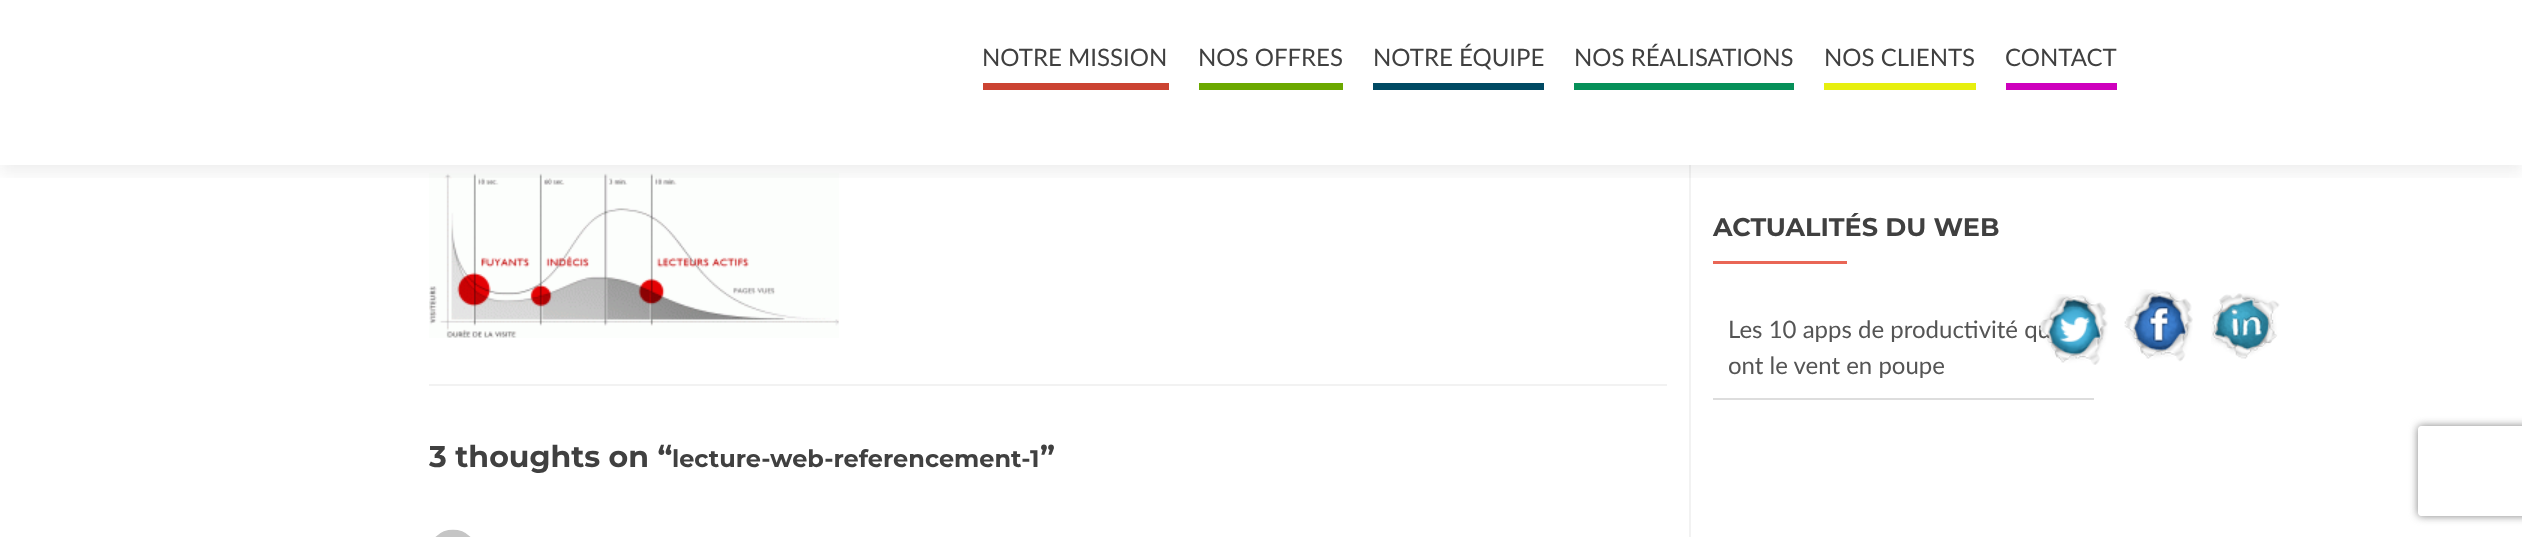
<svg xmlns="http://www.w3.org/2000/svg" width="2522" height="537">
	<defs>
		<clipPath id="clip1"><rect x="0" y="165" width="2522" height="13" /></clipPath>
		<clipPath id="clip2"><path d="M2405 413H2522V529H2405ZM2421 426H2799C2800.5 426 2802 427.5 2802 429V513C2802 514.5 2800.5 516 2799 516H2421C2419.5 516 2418 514.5 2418 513V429C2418 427.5 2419.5 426 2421 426Z" clip-rule="evenodd" /></clipPath>
	</defs>
	<rect width="100%" height="100%" fill="#FFFFFF" />
	<rect x="1689" y="165" width="2" height="372" fill="#F2F2F2" />
	<image x="429" y="173" width="410" height="165" href="assets/img1.png" />
	<g clip-path="url(#clip1)">
		<rect x="0" y="8" width="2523" height="165" fill="#323232" fill-opacity="0.08" filter="blur(8px)" />
	</g>
	<rect x="983" y="83" width="186" height="7" fill="#CB4332" />
	<text x="982" y="66" font-family="Lato" font-size="24" fill="#404040">NOTRE MISSION</text>
	<rect x="1199" y="83" width="144" height="7" fill="#6BA800" />
	<text x="1198" y="66" font-family="Lato" font-size="24" fill="#404040">NOS OFFRES</text>
	<rect x="1373" y="83" width="171" height="7" fill="#004A63" />
	<text x="1373" y="66" font-family="Lato" font-size="24" fill="#404040">NOTRE ÉQUIPE</text>
	<rect x="1574" y="83" width="220" height="7" fill="#069059" />
	<text x="1574" y="66" font-family="Lato" font-size="24" fill="#404040">NOS RÉALISATIONS</text>
	<rect x="1824" y="83" width="152" height="7" fill="#E7EF0E" />
	<text x="1824" y="66" font-family="Lato" font-size="24" fill="#404040">NOS CLIENTS</text>
	<rect x="2006" y="83" width="111" height="7" fill="#CE00BD" />
	<text x="2005" y="66" font-family="Lato" font-size="24" fill="#404040">CONTACT</text>
	<text x="1713" y="236" font-family="Montserrat" font-size="25.5" font-weight="700" fill="#404040">ACTUALITÉS DU WEB</text>
	<rect x="1713" y="261" width="134" height="3" fill="#E96656" />
	<rect x="1713" y="398" width="381" height="2" fill="#DDDDDD" />
	<g font-family="Lato" font-size="24" fill="#555555">
		<text x="1728" y="338">Les 10 apps de productivité qu</text>
		<text x="1728" y="374">ont le vent en poupe</text>
	</g>
	<rect x="429" y="384" width="1238" height="2" fill="#F2F2F2" />
	<text x="429" y="467" font-family="Montserrat" font-size="30" font-weight="700" fill="#404040">3 thoughts on “</text>
	<text x="672" y="467" font-family="Montserrat" font-size="24" font-weight="700" fill="#404040">lecture-web-referencement-1</text>
	<text x="1040" y="467" font-family="Montserrat" font-size="30" font-weight="700" fill="#404040">”</text>
	<image x="435" y="529" width="36" height="8" href="assets/img2.png" />
	<image x="2039" y="294" width="69" height="71" href="assets/img3.png" />
	<image x="2124" y="289" width="69" height="73" href="assets/img4.png" />
	<image x="2211" y="293" width="69" height="66" href="assets/img5.png" />
	<g clip-path="url(#clip2)">
		<rect x="2418" y="426" width="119" height="90" rx="3" fill="#808080" filter="blur(4px)" />
	</g>
</svg>
